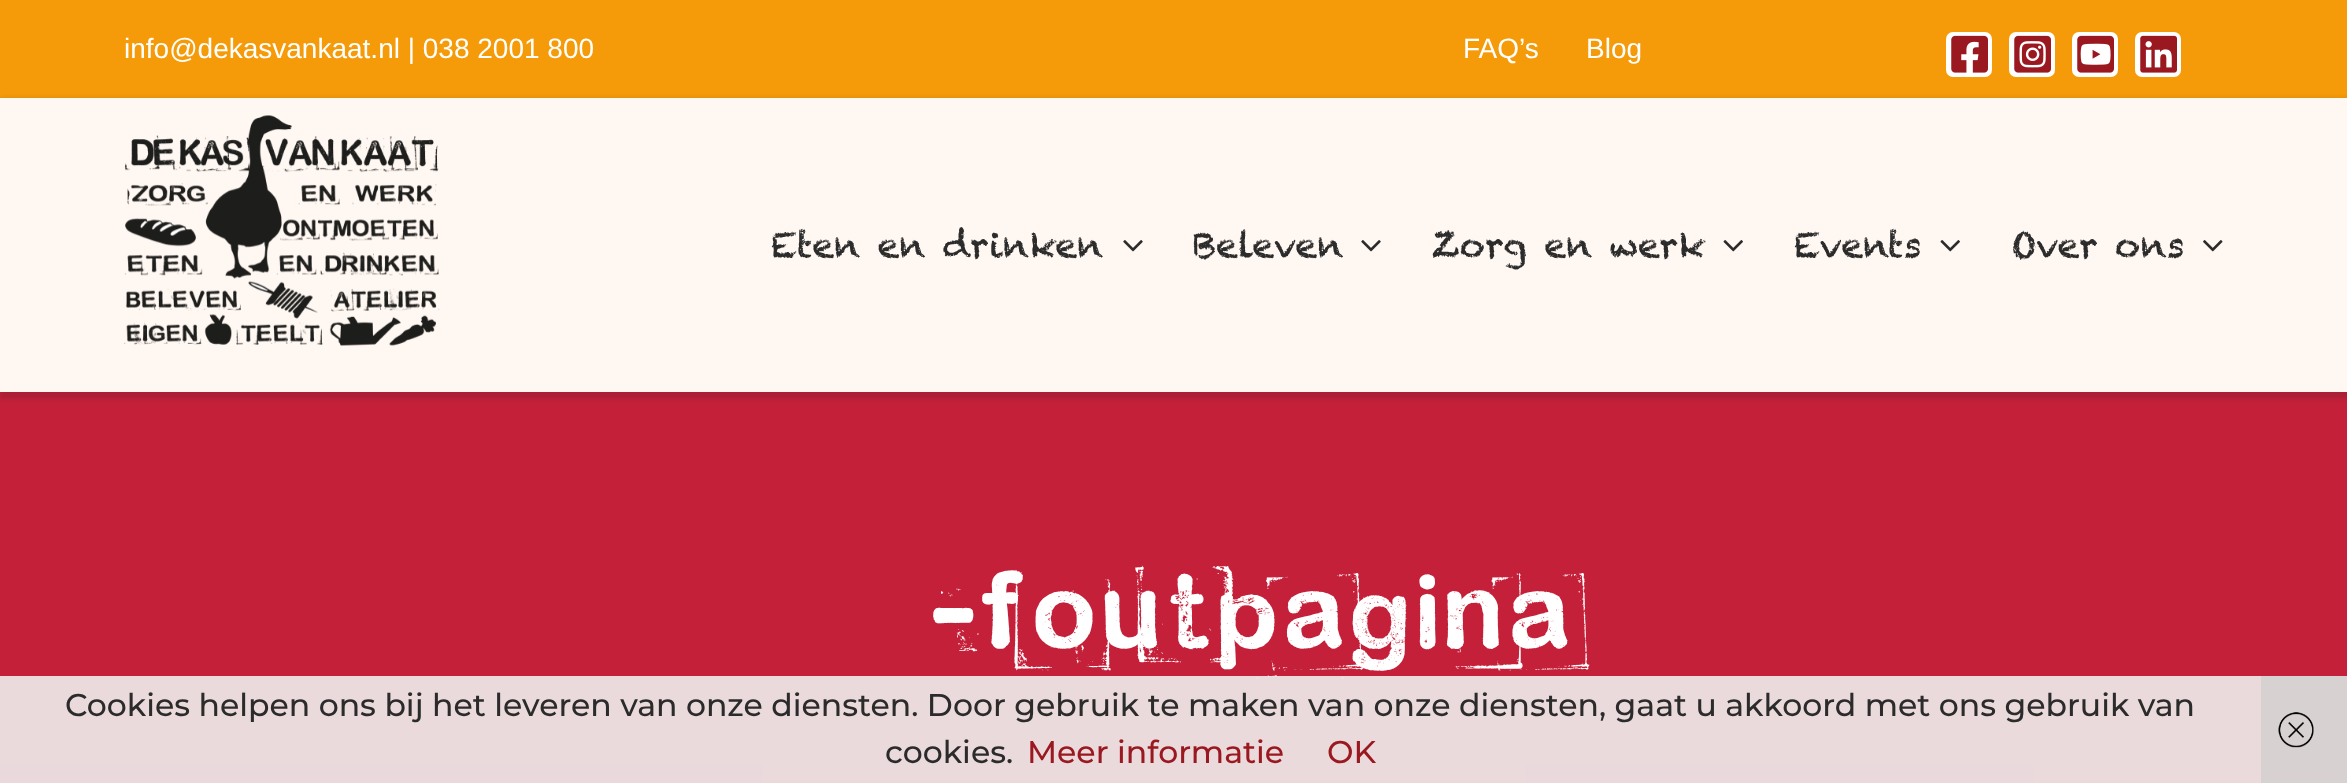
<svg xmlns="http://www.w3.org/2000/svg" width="2347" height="783">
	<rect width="100%" height="100%" fill="#C5203A" />
	<rect x="0" y="0" width="2347" height="98" fill="#F59B0A" />
	<g font-family="Liberation Sans" font-size="28" fill="#FFFFFF">
		<text x="124" y="58">info@dekasvankaat.nl | 038 2001 800</text>
		<text x="1463" y="58">FAQ’s</text>
		<text x="1586" y="58">Blog</text>
	</g>
	<rect x="1947" y="33" width="44" height="43" rx="6" fill="#FFFFFF" stroke="#FFFFFF" stroke-width="2" />
	<image x="1951" y="35" width="37" height="38" href="assets/img1.png" />
	<rect x="2010" y="33" width="44" height="43" rx="6" fill="#FFFFFF" stroke="#FFFFFF" stroke-width="2" />
	<image x="2014" y="35" width="37" height="38" href="assets/img2.png" />
	<rect x="2073" y="33" width="44" height="43" rx="6" fill="#FFFFFF" stroke="#FFFFFF" stroke-width="2" />
	<image x="2077" y="35" width="37" height="38" href="assets/img3.png" />
	<rect x="2136" y="33" width="44" height="43" rx="6" fill="#FFFFFF" stroke="#FFFFFF" stroke-width="2" />
	<image x="2140" y="35" width="37" height="38" href="assets/img4.png" />
	<rect x="0" y="98" width="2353" height="301" fill="#1D1D1B" fill-opacity="0.15" filter="blur(2px)" />
	<rect x="0" y="98" width="2347" height="294" fill="#FFF7F2" />
	<image x="124" y="115" width="316" height="231" href="assets/img5.png" />
	<text x="771" y="257" font-family="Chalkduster" font-size="35" fill="#2B2B2B">Eten en drinken</text>
	<image x="1123" y="240" width="20" height="12" href="assets/img6.png" />
	<text x="1193" y="257" font-family="Chalkduster" font-size="35" fill="#2B2B2B">Beleven</text>
	<image x="1361" y="240" width="20" height="12" href="assets/img6.png" />
	<text x="1432" y="257" font-family="Chalkduster" font-size="35" fill="#2B2B2B">Zorg en werk</text>
	<image x="1723" y="240" width="20" height="12" href="assets/img7.png" />
	<text x="1794" y="257" font-family="Chalkduster" font-size="35" fill="#2B2B2B">Events</text>
	<image x="1940" y="240" width="20" height="12" href="assets/img7.png" />
	<text x="2011" y="257" font-family="Chalkduster" font-size="35" fill="#2B2B2B">Over ons</text>
	<image x="2203" y="240" width="20" height="12" href="assets/img8.png" />
	<text x="775" y="649" font-family="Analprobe" font-size="105" fill="#FFFFFF">404-foutpagina</text>
	<rect x="0" y="676" width="2261" height="107" fill="#EEEEEE" fill-opacity="0.9" />
	<g font-family="Montserrat" font-size="31.5" font-weight="500" fill="#2B2B2B">
		<text x="65" y="716">Cookies helpen ons bij het leveren van onze diensten. Door gebruik te maken van onze diensten, gaat u akkoord met ons gebruik van</text>
		<text x="885" y="763">cookies.</text>
	</g>
	<g font-family="Montserrat" font-size="31.5" font-weight="500" fill="#9A1921">
		<text x="1027" y="763">Meer informatie</text>
		<text x="1327" y="763">OK</text>
	</g>
	<rect x="2261" y="676" width="86" height="107" fill="#D8D1D2" />
	<image x="2278" y="712" width="36" height="36" href="assets/img9.png" />
</svg>
